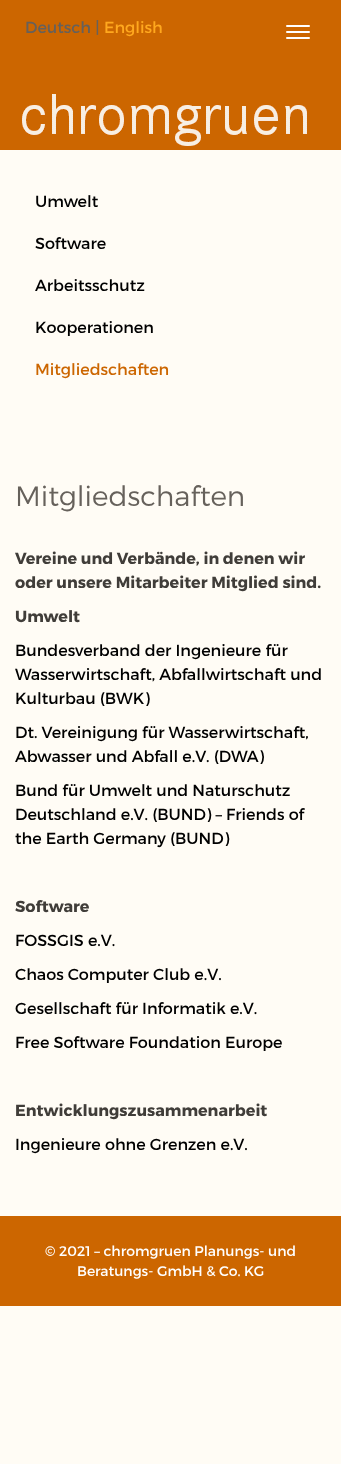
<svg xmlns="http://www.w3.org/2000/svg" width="341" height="1464">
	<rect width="100%" height="100%" fill="#FFFCF5" />
	<rect x="0" y="0" width="341" height="150" fill="#CC6600" />
	<text x="25" y="33" font-family="Montserrat" font-size="16" fill="#66615B">Deutsch |</text>
	<text x="104" y="33" font-family="Montserrat" font-size="16" fill="#FFA81E">English</text>
	<rect x="286" y="25" width="24" height="2" rx="1" fill="#FFFFFF" />
	<rect x="286" y="31" width="24" height="2" rx="1" fill="#FFFFFF" />
	<rect x="286" y="37" width="24" height="2" rx="1" fill="#FFFFFF" />
	<image x="22" y="94" width="285" height="52" href="assets/img1.png" />
	<g font-family="Montserrat" font-size="16" fill="#000000">
		<text x="35" y="207">Umwelt</text>
		<text x="35" y="249">Software</text>
		<text x="35" y="291">Arbeitsschutz</text>
		<text x="35" y="333">Kooperationen</text>
	</g>
	<text x="35" y="375" font-family="Montserrat" font-size="16" fill="#CC6600">Mitgliedschaften</text>
	<text x="15" y="506" font-family="Montserrat" font-size="28" font-weight="300" fill="#66615B">Mitgliedschaften</text>
	<g font-family="Montserrat" font-size="16" font-weight="700" fill="#403D39">
		<text x="15" y="564">Vereine und Verbände, in denen wir</text>
		<text x="15" y="588">oder unsere Mitarbeiter Mitglied sind.</text>
		<text x="15" y="622">Umwelt</text>
	</g>
	<g font-family="Montserrat" font-size="16" fill="#000000">
		<text x="15" y="656">Bundesverband der Ingenieure für</text>
		<text x="15" y="680">Wasserwirtschaft, Abfallwirtschaft und</text>
		<text x="15" y="704">Kulturbau (BWK)</text>
		<text x="15" y="738">Dt. Vereinigung für Wasserwirtschaft,</text>
		<text x="15" y="762">Abwasser und Abfall e.V. (DWA)</text>
		<text x="15" y="796">Bund für Umwelt und Naturschutz</text>
		<text x="15" y="820">Deutschland e.V. (BUND) – Friends of</text>
		<text x="15" y="844">the Earth Germany (BUND)</text>
	</g>
	<text x="15" y="912" font-family="Montserrat" font-size="16" font-weight="700" fill="#403D39">Software</text>
	<g font-family="Montserrat" font-size="16" fill="#000000">
		<text x="15" y="946">FOSSGIS e.V.</text>
		<text x="15" y="980">Chaos Computer Club e.V.</text>
		<text x="15" y="1014">Gesellschaft für Informatik e.V.</text>
		<text x="15" y="1048">Free Software Foundation Europe</text>
	</g>
	<text x="15" y="1116" font-family="Montserrat" font-size="16" font-weight="700" fill="#403D39">Entwicklungszusammenarbeit</text>
	<text x="15" y="1150" font-family="Montserrat" font-size="16" fill="#000000">Ingenieure ohne Grenzen e.V.</text>
	<rect x="0" y="1216" width="341" height="90" fill="#CC6600" />
	<g font-family="Montserrat" font-size="14" fill="#FFFFFF">
		<text x="45" y="1256">© 2021 – chromgruen Planungs- und</text>
		<text x="77" y="1276">Beratungs- GmbH &amp; Co. KG</text>
	</g>
</svg>
